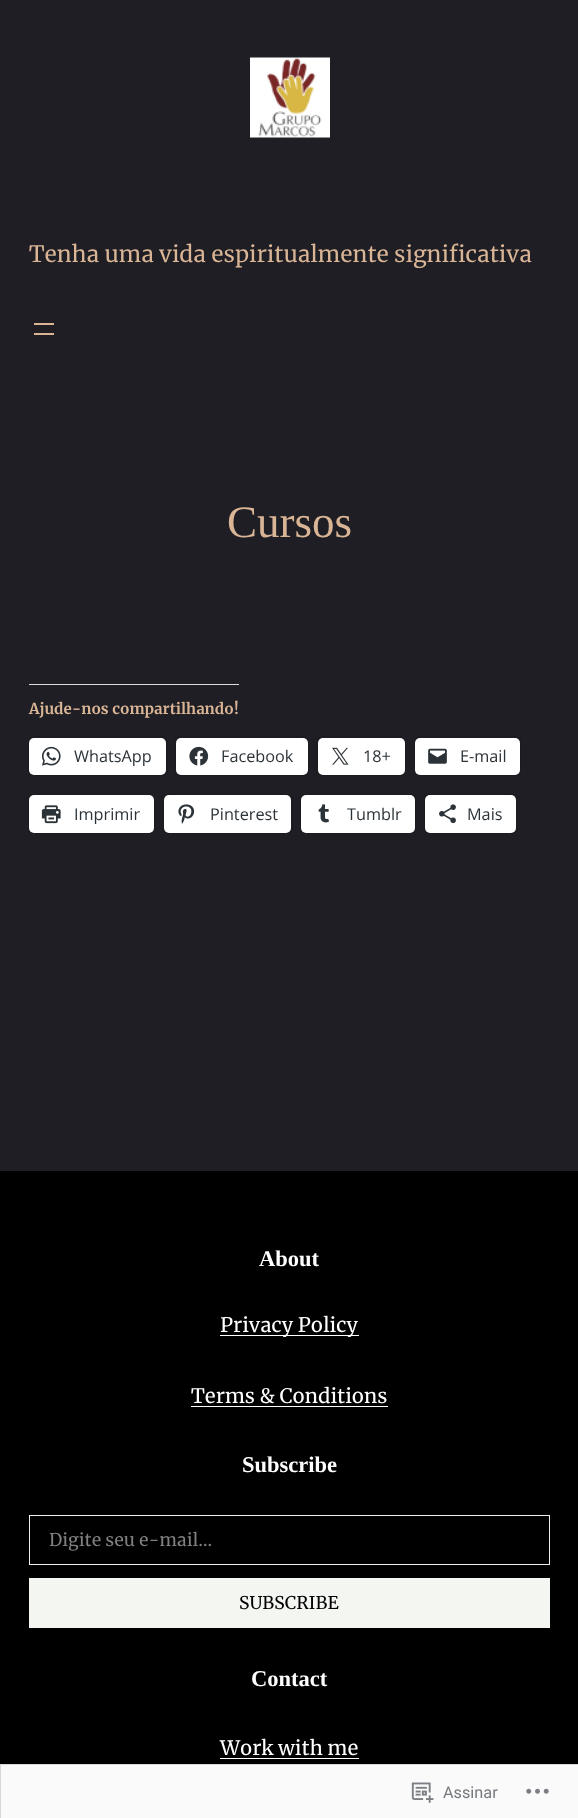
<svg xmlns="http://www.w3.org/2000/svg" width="578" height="1818">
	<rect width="100%" height="100%" fill="#1E1E24" />
	<image x="250" y="57" width="80" height="81" href="assets/img1.png" />
	<text x="29" y="262" font-family="Merriweather" font-size="22.5" fill="#D9B596">Tenha uma vida espiritualmente significativa</text>
	<rect x="34" y="323" width="20" height="2" fill="#D9B596" />
	<rect x="34" y="333" width="20" height="2" fill="#D9B596" />
	<text x="227" y="537" font-family="Liberation Serif" font-size="45" fill="#D9B596">Cursos</text>
	<rect x="29" y="684" width="210" height="1" fill="#DCDCDE" />
	<text x="29" y="714" font-family="Merriweather" font-size="15" font-weight="700" fill="#D9B596">Ajude-nos compartilhando!</text>
	<rect x="28.5" y="736.5" width="139" height="39" rx="5.5" fill="none" stroke="#1A1A20" />
	<rect x="29" y="738" width="137" height="37" rx="5" fill="#FFFFFF" />
	<image x="42" y="746" width="19" height="20" href="assets/img2.png" />
	<text x="74" y="762" font-family="Open Sans" font-size="16.25" fill="#2C3338">WhatsApp</text>
	<rect x="175.5" y="736.5" width="133" height="39" rx="5.5" fill="none" stroke="#1A1A20" />
	<rect x="176" y="738" width="132" height="37" rx="5" fill="#FFFFFF" />
	<image x="189" y="746" width="20" height="20" href="assets/img3.png" />
	<text x="221" y="762" font-family="Open Sans" font-size="16.25" fill="#2C3338">Facebook</text>
	<rect x="316.5" y="736.5" width="89" height="39" rx="5.5" fill="none" stroke="#1A1A20" />
	<rect x="318" y="738" width="87" height="37" rx="5" fill="#FFFFFF" />
	<image x="332" y="747" width="17" height="18" href="assets/img4.png" />
	<text x="363" y="762" font-family="Open Sans" font-size="16.25" fill="#2C3338">18+</text>
	<rect x="414.5" y="736.5" width="106" height="39" rx="5.5" fill="none" stroke="#1A1A20" />
	<rect x="415" y="738" width="105" height="37" rx="5" fill="#FFFFFF" />
	<image x="428" y="748" width="19" height="16" href="assets/img5.png" />
	<text x="460" y="762" font-family="Open Sans" font-size="16.25" fill="#2C3338">E-mail</text>
	<rect x="28.5" y="794.5" width="126" height="39" rx="5.5" fill="none" stroke="#1A1A20" />
	<rect x="29" y="795" width="125" height="38" rx="5" fill="#FFFFFF" />
	<image x="41" y="805" width="20" height="19" href="assets/img6.png" />
	<text x="74" y="820" font-family="Open Sans" font-size="16.25" fill="#2C3338">Imprimir</text>
	<rect x="163.5" y="794.5" width="129" height="39" rx="5.5" fill="none" stroke="#1A1A20" />
	<rect x="164" y="795" width="127" height="38" rx="5" fill="#FFFFFF" />
	<image x="178" y="804" width="17" height="20" href="assets/img7.png" />
	<text x="210" y="820" font-family="Open Sans" font-size="16.25" fill="#2C3338">Pinterest</text>
	<rect x="300.5" y="794.5" width="115" height="39" rx="5.5" fill="none" stroke="#1A1A20" />
	<rect x="301" y="795" width="114" height="38" rx="5" fill="#FFFFFF" />
	<image x="318" y="804" width="11" height="19" href="assets/img8.png" />
	<text x="347" y="820" font-family="Open Sans" font-size="16.25" fill="#2C3338">Tumblr</text>
	<rect x="424.5" y="794.5" width="93" height="39" rx="5.5" fill="none" stroke="#1A1A20" />
	<rect x="425" y="795" width="91" height="38" rx="5" fill="#FFFFFF" />
	<image x="439" y="804" width="17" height="20" href="assets/img9.png" />
	<text x="467" y="820" font-family="Open Sans" font-size="16.25" fill="#2C3338">Mais</text>
	<rect x="0" y="1171" width="578" height="593" fill="#000000" />
	<text x="259" y="1266" font-family="Liberation Serif" font-size="22.5" font-weight="700" fill="#FFFFFF">About</text>
	<rect x="220" y="1335" width="139" height="1" fill="#FFFFFF" />
	<g font-family="Merriweather" font-size="20" fill="#FFFFFF">
		<text x="220" y="1332">Privacy Policy</text>
		<text x="191" y="1403">Terms &amp; Conditions</text>
	</g>
	<rect x="191" y="1406" width="197" height="1" fill="#FFFFFF" />
	<text x="242" y="1472" font-family="Liberation Serif" font-size="22.5" font-weight="700" fill="#FFFFFF">Subscribe</text>
	<rect x="29.5" y="1515.5" width="520" height="49" fill="none" stroke="#EFEFEF" />
	<text x="49" y="1546" font-family="Merriweather" font-size="17.5" fill="#808080">Digite seu e-mail…</text>
	<rect x="29" y="1578" width="521" height="50" fill="#F4F6F2" />
	<text x="239" y="1609" font-family="Merriweather" font-size="17.5" fill="#000000">SUBSCRIBE</text>
	<text x="251" y="1686" font-family="Liberation Serif" font-size="22.5" font-weight="700" fill="#FFFFFF">Contact</text>
	<text x="220" y="1755" font-family="Merriweather" font-size="20" fill="#FFFFFF">Work with me</text>
	<rect x="220" y="1758" width="139" height="1" fill="#FFFFFF" />
	<rect x="0.5" y="1764.5" width="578" height="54" fill="#FAFAFA" stroke="#D8D8DA" />
	<image x="411" y="1782" width="23" height="21" href="assets/img10.png" />
	<text x="443" y="1798" font-family="Roboto" font-size="16.25" fill="#767A7F">Assinar</text>
	<image x="526" y="1788" width="23" height="6" href="assets/img11.png" />
</svg>
